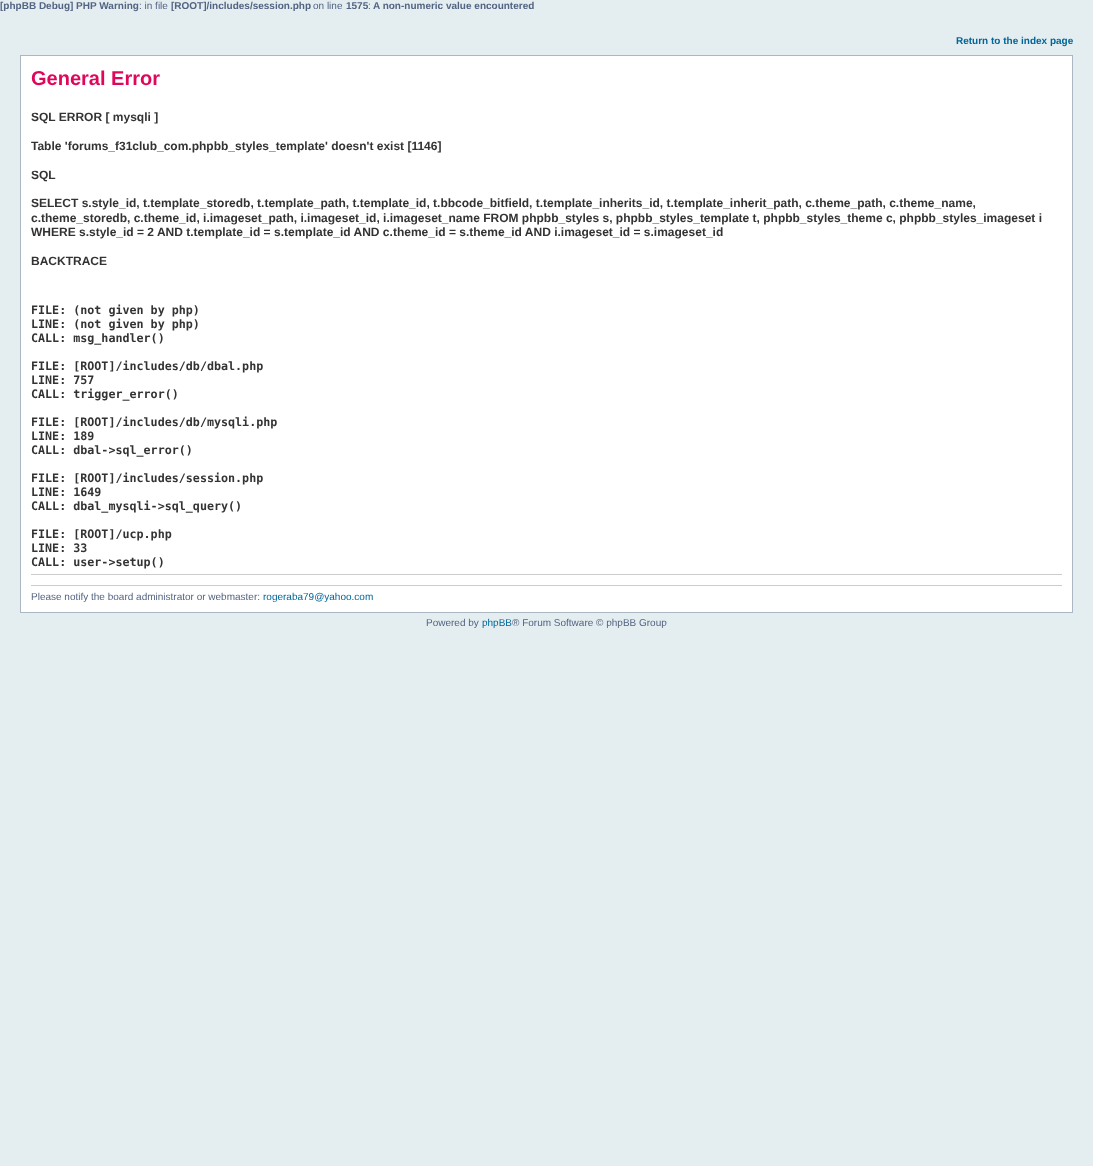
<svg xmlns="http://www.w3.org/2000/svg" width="1093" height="1166">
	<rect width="100%" height="100%" fill="#E4EDF0" />
	<text x="0" y="9" font-family="Liberation Sans" font-size="10" font-weight="700" fill="#536482">[phpBB Debug] PHP Warning</text>
	<text x="139" y="9" font-family="Liberation Sans" font-size="10" fill="#536482">: in file</text>
	<text x="171" y="9" font-family="Liberation Sans" font-size="10" font-weight="700" fill="#536482">[ROOT]/includes/session.php</text>
	<text x="313" y="9" font-family="Liberation Sans" font-size="10" fill="#536482">on line</text>
	<text x="346" y="9" font-family="Liberation Sans" font-size="10" font-weight="700" fill="#536482">1575</text>
	<text x="368" y="9" font-family="Liberation Sans" font-size="10" fill="#536482">:</text>
	<text x="373" y="9" font-family="Liberation Sans" font-size="10" font-weight="700" fill="#536482">A non-numeric value encountered</text>
	<text x="956" y="44" font-family="Liberation Sans" font-size="10" font-weight="700" fill="#006699">Return to the index page</text>
	<rect x="20.5" y="55.5" width="1052" height="557" fill="#FFFFFF" stroke="#A9B8C2" />
	<text x="31" y="85" font-family="Liberation Sans" font-size="20" font-weight="700" fill="#DF075C">General Error</text>
	<rect x="31" y="585" width="1031" height="1" fill="#CCCCCC" />
	<g font-family="Liberation Sans" font-size="12" font-weight="700" fill="#333333">
		<text x="31" y="121">SQL ERROR [ mysqli ]</text>
		<text x="31" y="150">Table 'forums_f31club_com.phpbb_styles_template' doesn't exist [1146]</text>
		<text x="31" y="179">SQL</text>
		<text x="31" y="207">SELECT s.style_id, t.template_storedb, t.template_path, t.template_id, t.bbcode_bitfield, t.template_inherits_id, t.template_inherit_path, c.theme_path, c.theme_name,</text>
		<text x="31" y="222">c.theme_storedb, c.theme_id, i.imageset_path, i.imageset_id, i.imageset_name FROM phpbb_styles s, phpbb_styles_template t, phpbb_styles_theme c, phpbb_styles_imageset i</text>
		<text x="31" y="236">WHERE s.style_id = 2 AND t.template_id = s.template_id AND c.theme_id = s.theme_id AND i.imageset_id = s.imageset_id</text>
		<text x="31" y="265">BACKTRACE</text>
	</g>
	<rect x="31" y="574" width="1031" height="1" fill="#CCCCCC" />
	<g font-family="DejaVu Sans Mono" font-size="11.7" font-weight="700" fill="#333333">
		<text x="31" y="314">FILE: (not given by php)</text>
		<text x="31" y="328">LINE: (not given by php)</text>
		<text x="31" y="342">CALL: msg_handler()</text>
		<text x="31" y="370">FILE: [ROOT]/includes/db/dbal.php</text>
		<text x="31" y="384">LINE: 757</text>
		<text x="31" y="398">CALL: trigger_error()</text>
		<text x="31" y="426">FILE: [ROOT]/includes/db/mysqli.php</text>
		<text x="31" y="440">LINE: 189</text>
		<text x="31" y="454">CALL: dbal-&gt;sql_error()</text>
		<text x="31" y="482">FILE: [ROOT]/includes/session.php</text>
		<text x="31" y="496">LINE: 1649</text>
		<text x="31" y="510">CALL: dbal_mysqli-&gt;sql_query()</text>
		<text x="31" y="538">FILE: [ROOT]/ucp.php</text>
		<text x="31" y="552">LINE: 33</text>
		<text x="31" y="566">CALL: user-&gt;setup()</text>
	</g>
	<text x="31" y="600" font-family="Liberation Sans" font-size="10" fill="#536482">Please notify the board administrator or webmaster:</text>
	<text x="263" y="600" font-family="Liberation Sans" font-size="10" fill="#006699">rogeraba79@yahoo.com</text>
	<text x="426" y="626" font-family="Liberation Sans" font-size="10" fill="#536482">Powered by</text>
	<text x="482" y="626" font-family="Liberation Sans" font-size="10" fill="#006699">phpBB</text>
	<text x="512" y="626" font-family="Liberation Sans" font-size="10" fill="#536482">® Forum Software © phpBB Group</text>
</svg>
